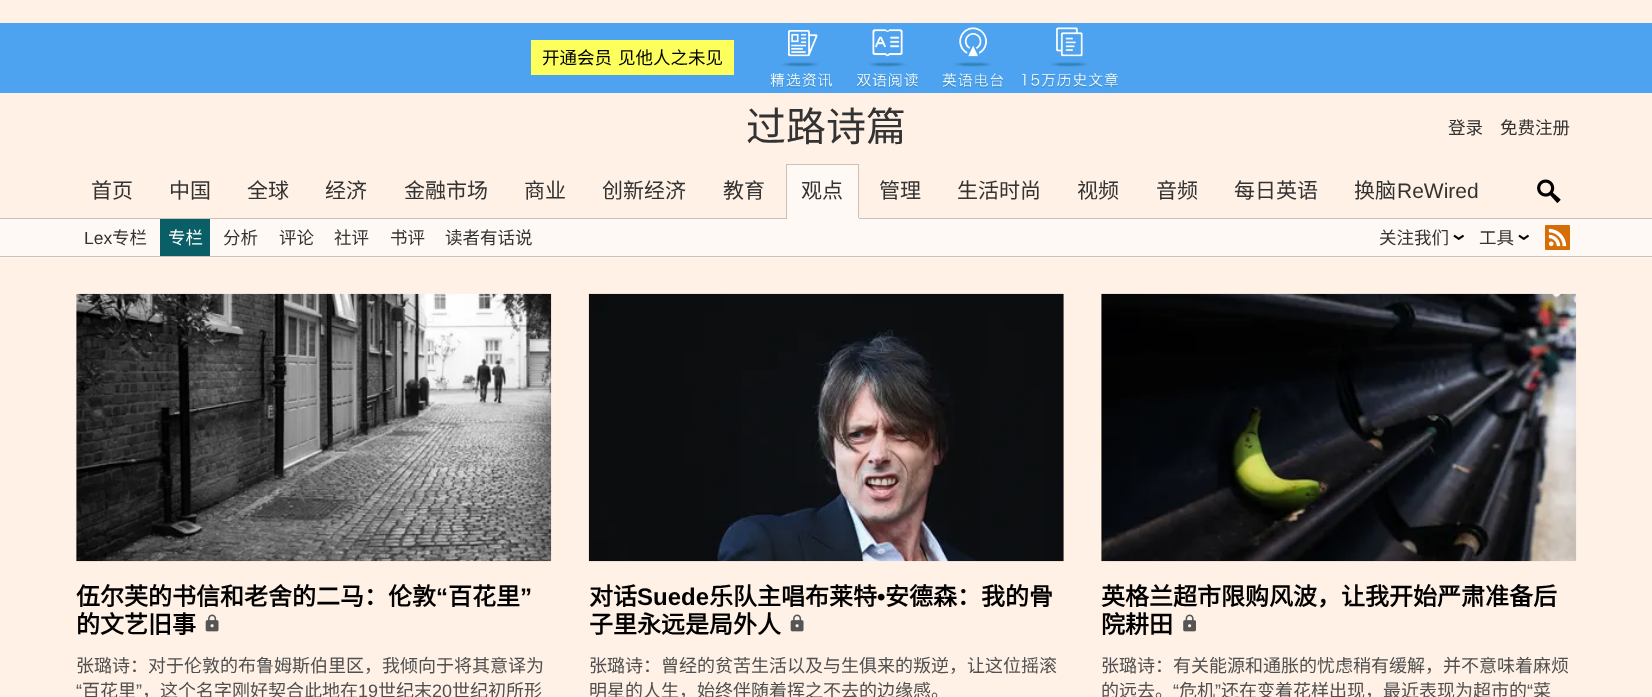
<svg xmlns="http://www.w3.org/2000/svg" width="1652" height="697">
	<rect width="100%" height="100%" fill="#FFF1E5" />
	<rect x="0" y="23" width="1652" height="70" fill="#4EA3F0" />
	<image x="770" y="27" width="348" height="62" href="assets/img1.png" />
	<rect x="531" y="40" width="203" height="35" fill="#FDFF5D" />
	<text x="542" y="64" word-spacing="2" font-family="Noto Sans CJK SC" font-size="17.5" fill="#000000">开通会员 见他人之未见</text>
	<text x="746" y="141" font-family="Noto Sans CJK SC" font-size="40" fill="#333333">过路诗篇</text>
	<g font-family="Noto Sans CJK SC" font-size="17.5" fill="#333333">
		<text x="1448" y="134">登录</text>
		<text x="1500" y="134">免费注册</text>
	</g>
	<g font-family="Noto Sans CJK SC" font-size="21" fill="#333333">
		<text x="247" y="198">全球</text>
		<text x="404" y="198">金融市场</text>
	</g>
	<rect x="787" y="165" width="71" height="53" fill="#FFF9F5" />
	<rect x="786" y="164" width="73" height="1" fill="#CCC1B7" />
	<rect x="0" y="218" width="1652" height="1" fill="#CCC1B7" />
	<rect x="858" y="164" width="1" height="55" fill="#CCC1B7" />
	<rect x="786" y="218" width="73" height="1" fill="#FFF9F5" />
	<rect x="786" y="164" width="1" height="55" fill="#CCC1B7" />
	<text x="801" y="198" font-family="Noto Sans CJK SC" font-size="21" fill="#333333">观点</text>
	<rect x="0" y="219" width="1652" height="39" fill="#FFF9F5" />
	<text x="84" y="244" font-family="Liberation Sans" font-size="17.5" fill="#333333">Lex</text>
	<text x="112" y="244" font-family="Noto Sans CJK SC" font-size="17.5" fill="#333333">专栏</text>
	<rect x="160" y="219" width="50" height="37" fill="#0A5E66" />
	<text x="168" y="244" font-family="Noto Sans CJK SC" font-size="17.5" fill="#FFFFFF">专栏</text>
	<g font-family="Noto Sans CJK SC" font-size="17.5" fill="#333333">
		<text x="223" y="244">分析</text>
		<text x="279" y="244">评论</text>
		<text x="334" y="244">社评</text>
		<text x="390" y="244">书评</text>
		<text x="445" y="244">读者有话说</text>
	</g>
	<g font-family="Noto Sans CJK SC" font-size="21" fill="#333333">
		<text x="91" y="198">首页</text>
		<text x="169" y="198">中国</text>
		<text x="325" y="198">经济</text>
		<text x="524" y="198">商业</text>
		<text x="602" y="198">创新经济</text>
		<text x="723" y="198">教育</text>
		<text x="879" y="198">管理</text>
		<text x="957" y="198">生活时尚</text>
		<text x="1077" y="198">视频</text>
		<text x="1156" y="198">音频</text>
		<text x="1234" y="198">每日英语</text>
		<text x="1354" y="198">换脑</text>
	</g>
	<text x="1397" y="198" font-family="Liberation Sans" font-size="21" fill="#333333">ReWired</text>
	<image x="1537" y="179" width="24" height="24" href="assets/img2.png" />
	<text x="1379" y="244" font-family="Noto Sans CJK SC" font-size="17.5" fill="#333333">关注我们</text>
	<image x="1453" y="234" width="11" height="6" href="assets/img3.png" />
	<text x="1479" y="244" font-family="Noto Sans CJK SC" font-size="17.5" fill="#333333">工具</text>
	<image x="1518" y="234" width="11" height="6" href="assets/img3.png" />
	<image x="1545" y="225" width="25" height="25" href="assets/img4.png" />
	<rect x="0" y="256" width="1652" height="1" fill="#CCC1B7" />
	<rect x="76" y="294" width="1" height="267" fill="#F6E9D8" />
	<image x="76" y="293" width="476" height="269" href="assets/img5.png" />
	<text x="76" y="605" font-family="Noto Sans CJK SC" font-size="24" font-weight="700" fill="#000000">伍尔芙的书信和老舍的二马：伦敦</text>
	<text x="436" y="605" font-family="Liberation Sans" font-size="24" font-weight="700" fill="#000000">“</text>
	<text x="448" y="605" font-family="Noto Sans CJK SC" font-size="24" font-weight="700" fill="#000000">百花里</text>
	<text x="520" y="605" font-family="Liberation Sans" font-size="24" font-weight="700" fill="#000000">”</text>
	<text x="76" y="633" font-family="Noto Sans CJK SC" font-size="24" font-weight="700" fill="#000000">的文艺旧事</text>
	<image x="205" y="614" width="14" height="18" href="assets/img6.png" />
	<text x="76" y="672" font-family="Noto Sans CJK SC" font-size="18" fill="#505050">张璐诗：对于伦敦的布鲁姆斯伯里区，我倾向于将其意译为</text>
	<text x="76" y="697" font-family="Liberation Sans" font-size="18" fill="#505050">“</text>
	<text x="82" y="697" font-family="Noto Sans CJK SC" font-size="18" fill="#505050">百花里</text>
	<text x="136" y="697" font-family="Liberation Sans" font-size="18" fill="#505050">”</text>
	<text x="142" y="697" font-family="Noto Sans CJK SC" font-size="18" fill="#505050">，这个名字刚好契合此地在</text>
	<text x="358" y="697" font-family="Liberation Sans" font-size="18" fill="#505050">19</text>
	<text x="378" y="697" font-family="Noto Sans CJK SC" font-size="18" fill="#505050">世纪末</text>
	<text x="432" y="697" font-family="Liberation Sans" font-size="18" fill="#505050">20</text>
	<text x="452" y="697" font-family="Noto Sans CJK SC" font-size="18" fill="#505050">世纪初所形</text>
	<rect x="1063" y="294" width="1" height="267" fill="#F6E9D8" />
	<image x="588" y="293" width="476" height="269" href="assets/img7.png" />
	<text x="589" y="605" font-family="Noto Sans CJK SC" font-size="24" font-weight="700" fill="#000000">对话</text>
	<text x="637" y="605" font-family="Liberation Sans" font-size="24" font-weight="700" fill="#000000">Suede</text>
	<text x="709" y="605" font-family="Noto Sans CJK SC" font-size="24" font-weight="700" fill="#000000">乐队主唱布莱特</text>
	<text x="877" y="605" font-family="Liberation Sans" font-size="24" font-weight="700" fill="#000000">•</text>
	<g font-family="Noto Sans CJK SC" font-size="24" font-weight="700" fill="#000000">
		<text x="885" y="605">安德森：我的骨</text>
		<text x="589" y="633">子里永远是局外人</text>
	</g>
	<image x="790" y="614" width="14" height="18" href="assets/img6.png" />
	<g font-family="Noto Sans CJK SC" font-size="18" fill="#505050">
		<text x="589" y="672">张璐诗：曾经的贫苦生活以及与生俱来的叛逆，让这位摇滚</text>
		<text x="589" y="697">明星的人生，始终伴随着挥之不去的边缘感。</text>
	</g>
	<rect x="1101" y="294" width="1" height="267" fill="#F6E9D8" />
	<image x="1101" y="293" width="476" height="269" href="assets/img8.png" />
	<g font-family="Noto Sans CJK SC" font-size="24" font-weight="700" fill="#000000">
		<text x="1101" y="605">英格兰超市限购风波，让我开始严肃准备后</text>
		<text x="1101" y="633">院耕田</text>
	</g>
	<image x="1183" y="614" width="13" height="18" href="assets/img9.png" />
	<g font-family="Noto Sans CJK SC" font-size="18" fill="#505050">
		<text x="1101" y="672">张璐诗：有关能源和通胀的忧虑稍有缓解，并不意味着麻烦</text>
		<text x="1101" y="697">的远去。</text>
	</g>
	<text x="1173" y="697" font-family="Liberation Sans" font-size="18" fill="#505050">“</text>
	<text x="1179" y="697" font-family="Noto Sans CJK SC" font-size="18" fill="#505050">危机</text>
	<text x="1215" y="697" font-family="Liberation Sans" font-size="18" fill="#505050">”</text>
	<text x="1221" y="697" font-family="Noto Sans CJK SC" font-size="18" fill="#505050">还在变着花样出现，最近表现为超市的</text>
	<text x="1527" y="697" font-family="Liberation Sans" font-size="18" fill="#505050">“</text>
	<text x="1533" y="697" font-family="Noto Sans CJK SC" font-size="18" fill="#505050">菜</text>
</svg>
